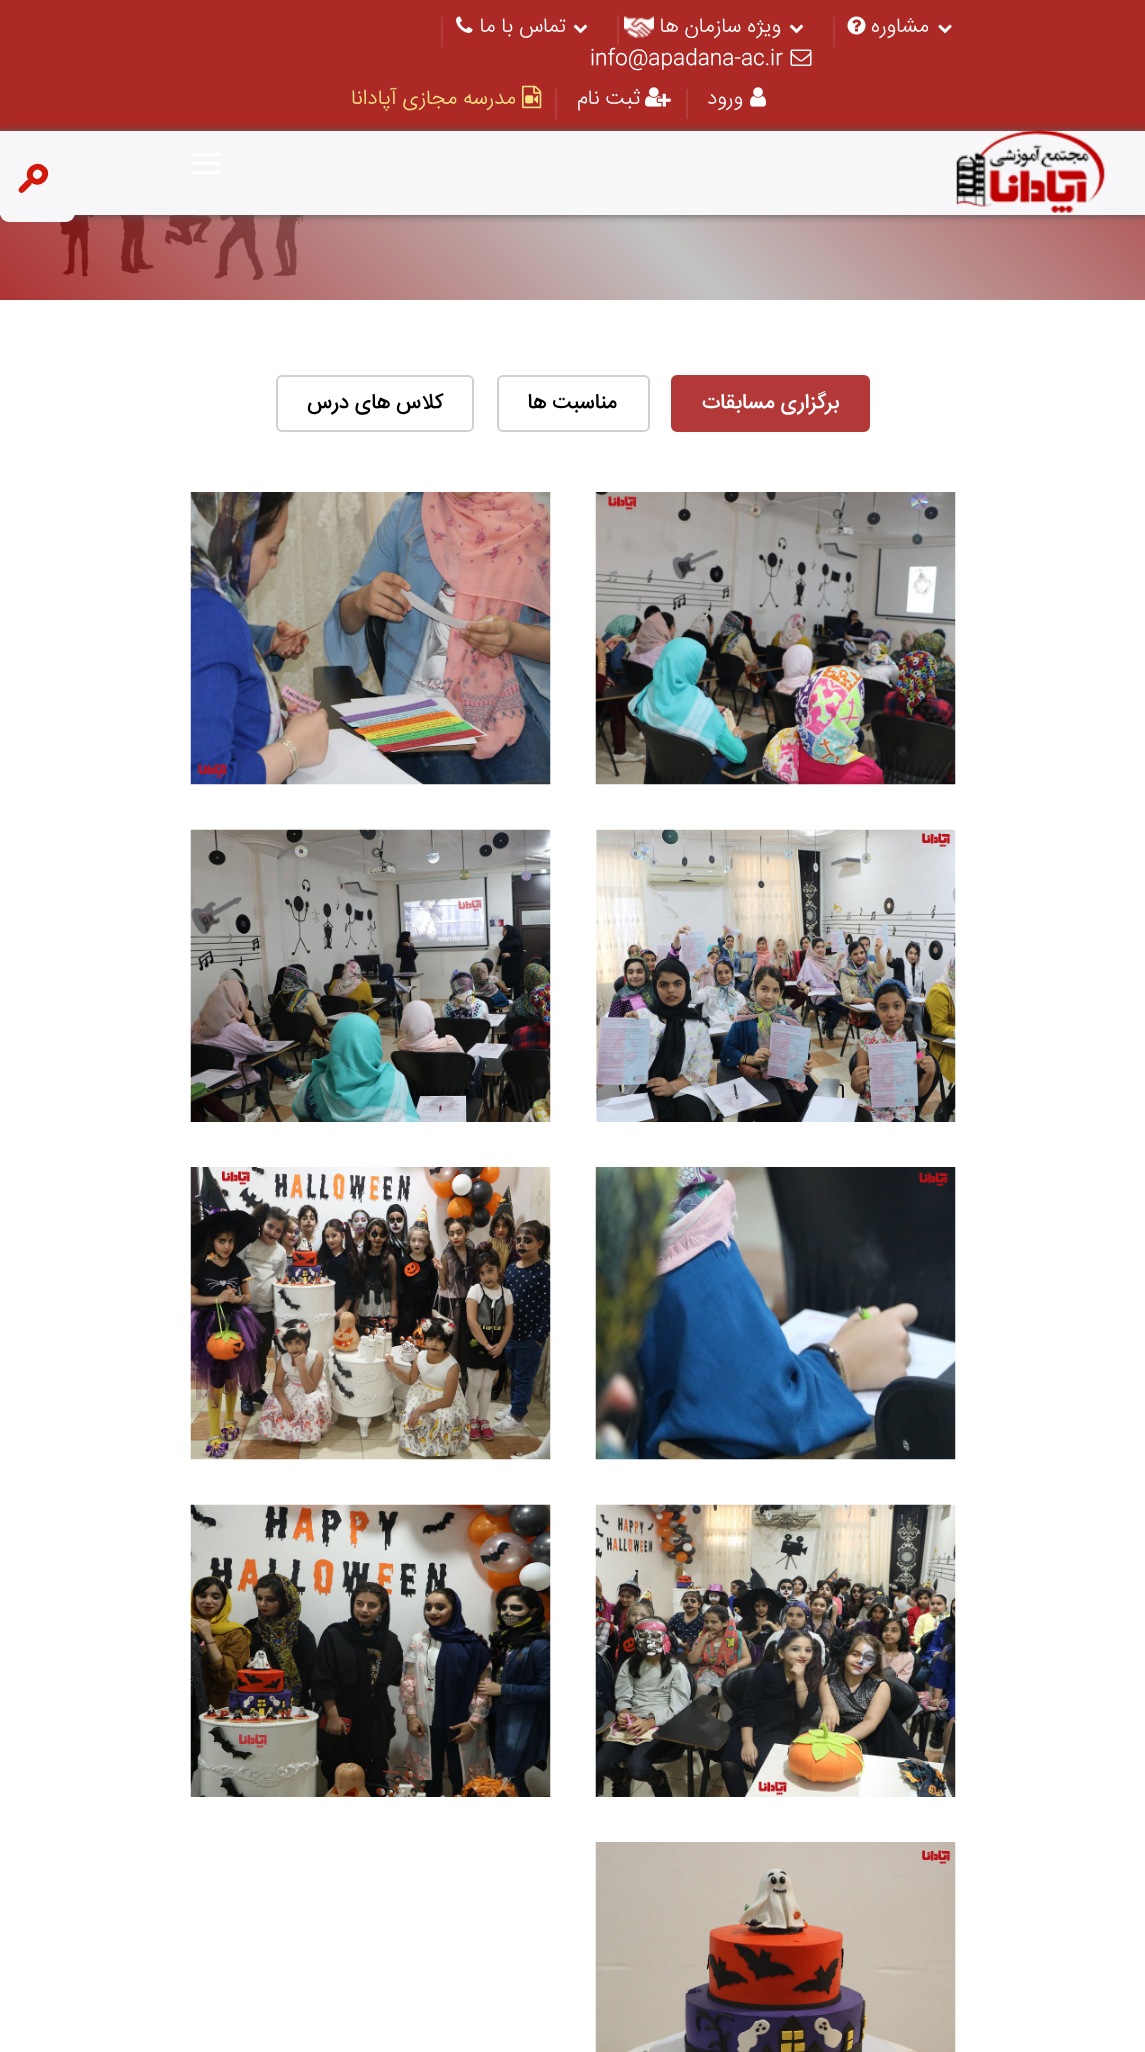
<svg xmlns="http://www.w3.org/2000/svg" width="1145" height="2052">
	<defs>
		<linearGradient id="g1" gradientUnits="userSpaceOnUse" x1="212" y1="512" x2="935" y2="-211"><stop offset="0" stop-color="#990000" stop-opacity="0.8" /><stop offset="0.5" stop-color="#B3B3B3" stop-opacity="0.8" /><stop offset="1" stop-color="#990000" stop-opacity="0.8" /></linearGradient>
		<clipPath id="clip1"><path d="M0 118H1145V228H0ZM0 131H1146V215H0Z" clip-rule="evenodd" /></clipPath>
	</defs>
	<rect width="100%" height="100%" fill="#FFFFFF" />
	<rect x="0" y="0" width="1145" height="129" fill="#AC2925" />
	<rect x="0" y="129" width="1145" height="2" fill="#B33A36" />
	<image x="938" y="24" width="14" height="10" href="assets/img1.png" />
	<text x="929" y="32" font-family="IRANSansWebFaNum" font-size="21" font-weight="300" direction="rtl" fill="#FFFFFF">مشاوره</text>
	<image x="847" y="16" width="19" height="19" href="assets/img2.png" />
	<rect x="833" y="17" width="2" height="30" fill="#B43E3B" />
	<image x="789" y="24" width="15" height="10" href="assets/img3.png" />
	<text x="781" y="32" font-family="IRANSansWebFaNum" font-size="21" font-weight="300" direction="rtl" fill="#FFFFFF">ویژه سازمان ها</text>
	<image x="624" y="16" width="30" height="22" href="assets/img4.png" />
	<rect x="617" y="15" width="2" height="30" fill="#B43E3B" />
	<image x="573" y="24" width="15" height="10" href="assets/img3.png" />
	<text x="566" y="32" font-family="IRANSansWebFaNum" font-size="21" font-weight="300" direction="rtl" fill="#FFFFFF">تماس با ما</text>
	<image x="456" y="16" width="17" height="17" href="assets/img5.png" />
	<rect x="441" y="17" width="2" height="30" fill="#B43E3B" />
	<image x="790" y="49" width="22" height="17" href="assets/img6.png" />
	<text x="590" y="64" font-family="IRANSansWebFaNum" font-size="21" font-weight="300" fill="#FFFFFF">info@apadana-ac.ir</text>
	<image x="750" y="87" width="17" height="20" href="assets/img7.png" />
	<text x="743" y="104" font-family="IRANSansWebFaNum" font-size="21" font-weight="300" direction="rtl" fill="#FFFFFF">ورود</text>
	<rect x="686" y="89" width="2" height="30" fill="#B43E3B" />
	<image x="645" y="87" width="26" height="20" href="assets/img8.png" />
	<text x="640" y="104" font-family="IRANSansWebFaNum" font-size="21" font-weight="300" direction="rtl" fill="#FFFFFF">ثبت‌ نام</text>
	<rect x="555" y="89" width="2" height="30" fill="#B43E3B" />
	<image x="522" y="85" width="20" height="24" href="assets/img9.png" />
	<text x="516" y="104" font-family="IRANSansWebFaNum" font-size="21" font-weight="300" direction="rtl" fill="#FFE484">مدرسه مجازی آپادانا</text>
	<rect x="0" y="131" width="1145" height="84" fill="#F7F7F9" />
	<image x="59" y="215" width="245" height="66" href="assets/img11.png" />
	<rect x="0" y="215" width="1145" height="85" fill="url(#g1)" />
	<g clip-path="url(#clip1)">
		<rect x="0" y="131" width="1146" height="84" fill="#505050" filter="blur(4px)" />
	</g>
	<rect x="0" y="214" width="1145" height="1" fill="#FFFFFF" fill-opacity="0.05" />
	<image x="956" y="130" width="149" height="83" href="assets/img10.png" />
	<rect x="191" y="153" width="30" height="3" rx="1.5" fill="#FFFFFF" />
	<rect x="191" y="162" width="30" height="3" rx="1.5" fill="#FFFFFF" />
	<rect x="191" y="171" width="30" height="3" rx="1.5" fill="#FFFFFF" />
	<rect x="0" y="147" width="75" height="75" rx="9" fill="#F7F7F9" />
	<path d="M31 180.5C34 183.5 29 186.5 27.5 188.5C25.5 190 22.5 195 19.5 192C16.5 189 21.5 186 23 184C25 182.5 28 177.5 31 180.5Z" fill="#D3190D" />
	<path d="M43 169C50 175.5 39 186.5 32 179.5C25 172.5 36 162 43 169Z" fill="none" stroke="#D3190D" stroke-width="6" />
	<rect x="672" y="376" width="197" height="55" rx="5" fill="#B33939" stroke="#B33939" stroke-width="2" />
	<text x="839" y="408" font-family="IRANSansWebFaNum" font-size="21" font-weight="500" direction="rtl" fill="#FFFFFF">برگزاری مسابقات</text>
	<rect x="498" y="376" width="151" height="55" rx="5" fill="none" stroke="#D0D0D0" stroke-width="2" />
	<text x="617" y="408" font-family="IRANSansWebFaNum" font-size="21" font-weight="500" direction="rtl" fill="#000000">مناسبت ها</text>
	<rect x="277" y="376" width="196" height="55" rx="5" fill="none" stroke="#D0D0D0" stroke-width="2" />
	<text x="443" y="408" font-family="IRANSansWebFaNum" font-size="21" font-weight="500" direction="rtl" fill="#000000">کلاس های درس</text>
	<image x="595" y="492" width="361" height="293" href="assets/img12.png" />
	<image x="190" y="492" width="361" height="293" href="assets/img13.png" />
	<image x="596" y="829" width="360" height="293" href="assets/img14.png" />
	<image x="190" y="829" width="361" height="293" href="assets/img15.png" />
	<image x="595" y="1167" width="361" height="293" href="assets/img16.png" />
	<image x="190" y="1167" width="361" height="293" href="assets/img17.png" />
	<image x="595" y="1504" width="361" height="293" href="assets/img18.png" />
	<image x="190" y="1504" width="361" height="293" href="assets/img19.png" />
	<image x="595" y="1842" width="361" height="210" href="assets/img20.png" />
</svg>
